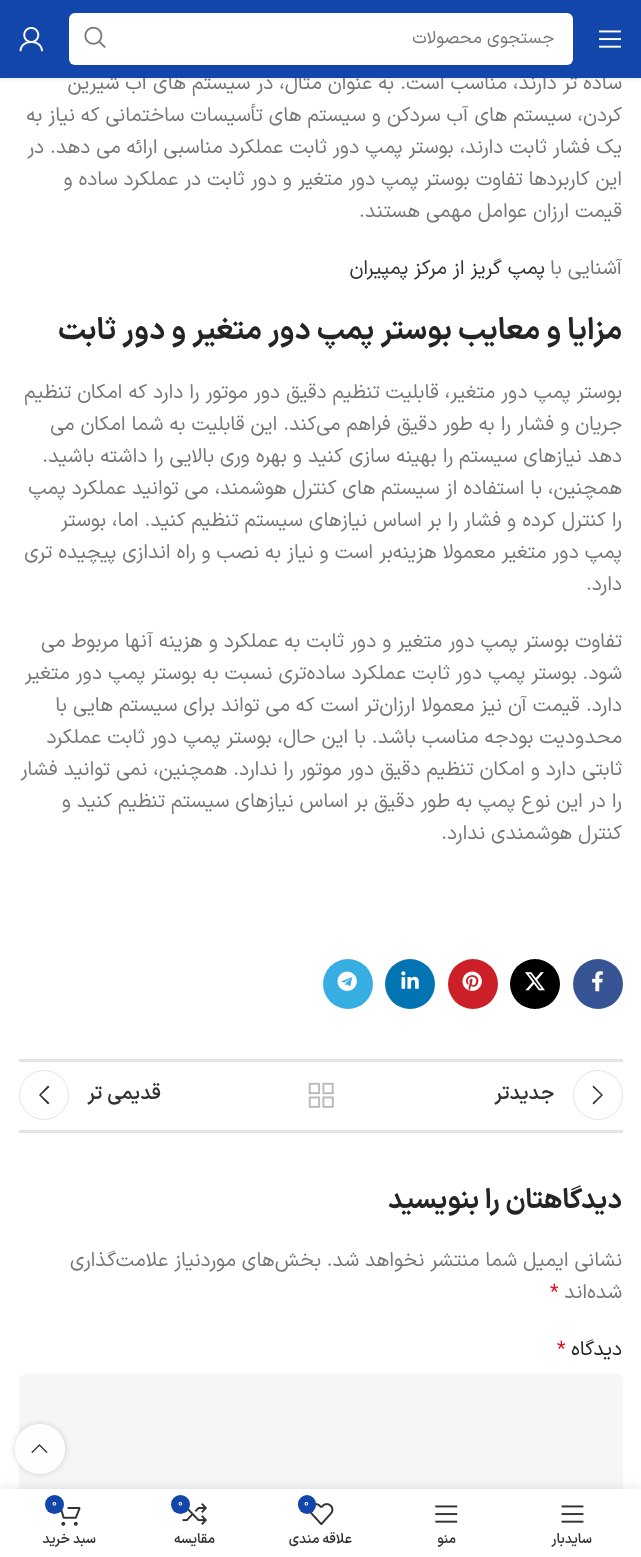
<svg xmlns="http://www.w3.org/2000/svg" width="641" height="1557">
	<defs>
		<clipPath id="clip1"><path d="M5 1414H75V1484H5ZM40 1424C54 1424 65 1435 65 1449C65 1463 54 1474 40 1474C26 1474 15 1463 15 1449C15 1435 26 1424 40 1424Z" clip-rule="evenodd" /></clipPath>
	</defs>
	<rect width="100%" height="100%" fill="#FFFFFF" />
	<rect x="0" y="1" width="641" height="78" fill="#000000" fill-opacity="0.1" filter="blur(2px)" />
	<text x="622" y="89" font-family="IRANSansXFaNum" font-size="20" direction="rtl" fill="#777777">ساده ‌تر دارند، مناسب است. به عنوان مثال، در سیستم ‌های آب ‌شیرین</text>
	<rect x="0" y="0" width="641" height="78" fill="#1246AB" />
	<image x="599" y="30" width="22" height="18" href="assets/img1.png" />
	<rect x="69" y="13" width="504" height="52" rx="6" fill="#FFFFFF" />
	<text x="554" y="43" font-family="IRANSansXFaNum" font-size="17.5" direction="rtl" fill="#777777">جستجوی محصولات</text>
	<image x="84" y="26" width="22" height="22" href="assets/img2.png" />
	<image x="19" y="27" width="24" height="25" href="assets/img3.png" />
	<g font-family="IRANSansXFaNum" font-size="20" direction="rtl" fill="#777777">
		<text x="622" y="121">کردن، سیستم ‌های آب سردکن و سیستم‌ های تأسیسات ساختمانی که نیاز به</text>
		<text x="622" y="153">یک فشار ثابت دارند، بوستر پمپ دور ثابت عملکرد مناسبی ارائه می ‌دهد. در</text>
		<text x="622" y="185">این کاربردها تفاوت بوستر پمپ دور متغیر و دور ثابت در عملکرد ساده و</text>
		<text x="622" y="217">قیمت ارزان عوامل مهمی هستند.</text>
		<text x="622" y="274">آشنایی با</text>
	</g>
	<text x="545" y="274" font-family="IRANSansXFaNum" font-size="20" direction="rtl" fill="#333333">پمپ گریز از مرکز پمپیران</text>
	<text x="622" y="339" font-family="IRANSansXFaNum" font-size="30" font-weight="700" direction="rtl" fill="#242424">مزایا و معایب بوستر پمپ دور متغیر و دور ثابت</text>
	<g font-family="IRANSansXFaNum" font-size="20" direction="rtl" fill="#777777">
		<text x="622" y="398">بوستر پمپ دور متغیر، قابلیت تنظیم دقیق دور موتور را دارد که امکان تنظیم</text>
		<text x="622" y="430">جریان و فشار را به طور دقیق فراهم می‌کند. این قابلیت به شما امکان می</text>
		<text x="622" y="462">‌دهد نیازهای سیستم را بهینه ‌سازی کنید و بهره ‌وری بالایی را داشته باشید.</text>
		<text x="622" y="494">همچنین، با استفاده از سیستم‌ های کنترل هوشمند، می‌ توانید عملکرد پمپ</text>
		<text x="622" y="526">را کنترل کرده و فشار را بر اساس نیازهای سیستم تنظیم کنید. اما، بوستر</text>
		<text x="622" y="558">پمپ دور متغیر معمولا هزینه‌بر است و نیاز به نصب و راه ‌اندازی پیچیده‌ تری</text>
		<text x="622" y="590">دارد.</text>
		<text x="622" y="647">تفاوت بوستر پمپ دور متغیر و دور ثابت به عملکرد و هزینه آنها مربوط می</text>
		<text x="622" y="679">شود. بوستر پمپ دور ثابت عملکرد ساده‌تری نسبت به بوستر پمپ دور متغیر</text>
		<text x="622" y="711">دارد. قیمت آن نیز معمولا ارزان‌تر است که می‌ تواند برای سیستم ‌هایی با</text>
		<text x="622" y="743">محدودیت بودجه مناسب باشد. با این حال، بوستر پمپ دور ثابت عملکرد</text>
		<text x="622" y="775">ثابتی دارد و امکان تنظیم دقیق دور موتور را ندارد. همچنین، نمی‌ توانید فشار</text>
		<text x="622" y="807">را در این نوع پمپ به طور دقیق بر اساس نیازهای سیستم تنظیم کنید و</text>
		<text x="622" y="839">کنترل هوشمندی ندارد.</text>
	</g>
	<circle cx="598" cy="984" r="25" fill="#365493" />
	<image x="592" y="971" width="11" height="21" href="assets/img4.png" />
	<circle cx="535" cy="984" r="25" fill="#000000" />
	<image x="525" y="972" width="20" height="19" href="assets/img5.png" />
	<circle cx="473" cy="984" r="25" fill="#CB2027" />
	<image x="462" y="971" width="20" height="20" href="assets/img6.png" />
	<circle cx="410" cy="984" r="25" fill="#0274B3" />
	<image x="401" y="971" width="18" height="18" href="assets/img7.png" />
	<circle cx="348" cy="984" r="25" fill="#37AEE2" />
	<image x="337" y="971" width="20" height="20" href="assets/img8.png" />
	<rect x="19" y="1059" width="604" height="3" fill="#E4E4E4" />
	<rect x="19" y="1130" width="604" height="3" fill="#E4E4E4" />
	<circle cx="598" cy="1095" r="24.5" fill="none" stroke="#E4E4E4" />
	<path d="M592.5 1087L601 1095L592.5 1103L593.5 1104.5L603 1095L593.5 1085.5Z" fill="#333333" />
	<text x="554" y="1099" font-family="IRANSansXFaNum" font-size="20" font-weight="600" direction="rtl" fill="#333333">جدیدتر</text>
	<image x="308" y="1082" width="26" height="26" href="assets/img9.png" />
	<text x="161" y="1099" font-family="IRANSansXFaNum" font-size="20" font-weight="600" direction="rtl" fill="#333333">قدیمی تر</text>
	<circle cx="44" cy="1095" r="24.5" fill="none" stroke="#E4E4E4" />
	<path d="M49.5 1087L48 1085.5L39 1095L48 1104.5L49.5 1103L41 1095Z" fill="#333333" />
	<text x="622" y="1208" font-family="IRANSansXFaNum" font-size="27.5" font-weight="700" direction="rtl" fill="#242424">دیدگاهتان را بنویسید</text>
	<g font-family="IRANSansXFaNum" font-size="20" direction="rtl" fill="#777777">
		<text x="622" y="1266">نشانی ایمیل شما منتشر نخواهد شد.</text>
		<text x="321" y="1266">بخش‌های موردنیاز علامت‌گذاری</text>
		<text x="622" y="1298">شده‌اند</text>
	</g>
	<text x="550" y="1298" font-family="IRANSansXFaNum" font-size="20" fill="#E01020">*</text>
	<text x="622" y="1355" font-family="IRANSansXFaNum" font-size="20" direction="rtl" fill="#242424">دیدگاه</text>
	<text x="557" y="1355" font-family="IRANSansXFaNum" font-size="20" fill="#E01020">*</text>
	<rect x="19" y="1374" width="604" height="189" rx="6" fill="#F6F6F6" />
	<g clip-path="url(#clip1)">
		<rect x="15" y="1424" width="50" height="50" rx="25" fill="#000000" fill-opacity="0.17" filter="blur(3px)" />
	</g>
	<circle cx="40" cy="1449" r="25" fill="#FFFFFF" fill-opacity="0.9" />
	<image x="31" y="1444" width="17" height="9" href="assets/img10.png" />
	<rect x="0" y="1489" width="641" height="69" fill="#000000" fill-opacity="0.12" filter="blur(5.5px)" />
	<rect x="0" y="1489" width="641" height="68" fill="#FFFFFF" />
	<image x="561" y="1505" width="23" height="18" href="assets/img11.png" />
	<text x="592" y="1543" font-family="IRANSansXFaNum" font-size="13.75" font-weight="600" direction="rtl" fill="#333333">سایدبار</text>
	<image x="435" y="1505" width="23" height="18" href="assets/img12.png" />
	<text x="456" y="1543" font-family="IRANSansXFaNum" font-size="13.75" font-weight="600" direction="rtl" fill="#333333">منو</text>
	<image x="310" y="1503" width="24" height="22" href="assets/img13.png" />
	<rect x="298" y="1495" width="18" height="19" rx="9" fill="#1246AB" />
	<text x="304" y="1506" font-family="IRANSansXFaNum" font-size="11" fill="#FFFFFF">0</text>
	<text x="352" y="1543" font-family="IRANSansXFaNum" font-size="13.75" font-weight="600" direction="rtl" fill="#333333">علاقه مندی</text>
	<image x="182" y="1503" width="25" height="22" href="assets/img14.png" />
	<circle cx="180.5" cy="1504.5" r="9.5" fill="#1246AB" />
	<text x="178" y="1506" font-family="IRANSansXFaNum" font-size="11" fill="#FFFFFF">0</text>
	<text x="215" y="1543" font-family="IRANSansXFaNum" font-size="13.75" font-weight="600" direction="rtl" fill="#333333">مقایسه</text>
	<image x="60" y="1507" width="21" height="19" href="assets/img15.png" />
	<circle cx="54.5" cy="1504.5" r="9.5" fill="#1246AB" />
	<text x="52" y="1506" font-family="IRANSansXFaNum" font-size="11" fill="#FFFFFF">0</text>
	<text x="96" y="1543" font-family="IRANSansXFaNum" font-size="13.75" font-weight="600" direction="rtl" fill="#333333">سبد خرید</text>
</svg>
